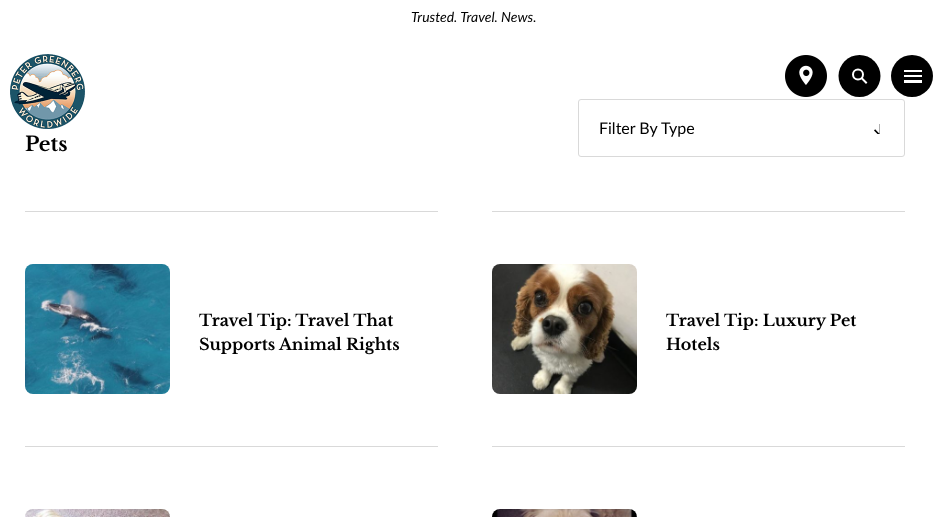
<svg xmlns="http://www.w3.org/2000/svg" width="948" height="517">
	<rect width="100%" height="100%" fill="#FFFFFF" />
	<text x="411" y="22" font-family="Lato" font-size="14" font-style="italic" fill="#000000">Trusted. Travel. News.</text>
	<image x="10" y="54" width="75" height="75" href="assets/img1.png" />
	<image x="785" y="55" width="42" height="42" href="assets/img2.png" />
	<circle cx="859.5" cy="76" r="21" fill="#000000" />
	<circle cx="858" cy="74.5" r="5" fill="none" stroke="#FFFFFF" stroke-width="2" />
	<path d="M862 78.5L866 82.5" fill="none" stroke="#FFFFFF" stroke-width="2" stroke-linecap="square" />
	<circle cx="912" cy="76" r="21" fill="#000000" />
	<rect x="904" y="70" width="18" height="2" fill="#FFFFFF" />
	<rect x="904" y="75" width="18" height="2" fill="#FFFFFF" />
	<rect x="904" y="80" width="18" height="3" fill="#FFFFFF" />
	<rect x="578.5" y="99.5" width="326" height="57" rx="2.5" fill="none" stroke="#D9D9D9" />
	<text x="599" y="134" font-family="Lato" font-size="16" fill="#000000">Filter By Type</text>
	<image x="874" y="124" width="6" height="10" href="assets/img3.png" />
	<text x="25" y="151" font-family="Libre Baskerville" font-size="20" font-weight="700" fill="#000000">Pets</text>
	<rect x="25" y="211" width="413" height="1" fill="#D9D9D9" />
	<rect x="25" y="446" width="413" height="1" fill="#D9D9D9" />
	<image x="25" y="264" width="145" height="130" href="assets/img4.png" />
	<g font-family="Libre Baskerville" font-size="16" font-weight="700" fill="#000000">
		<text x="199" y="326">Travel Tip: Travel That</text>
		<text x="199" y="350">Supports Animal Rights</text>
	</g>
	<rect x="492" y="211" width="413" height="1" fill="#D9D9D9" />
	<rect x="492" y="446" width="413" height="1" fill="#D9D9D9" />
	<image x="492" y="264" width="145" height="130" href="assets/img5.png" />
	<g font-family="Libre Baskerville" font-size="16" font-weight="700" fill="#000000">
		<text x="666" y="326">Travel Tip: Luxury Pet</text>
		<text x="666" y="350">Hotels</text>
	</g>
	<image x="25" y="509" width="145" height="8" href="assets/img6.png" />
	<image x="492" y="509" width="145" height="8" href="assets/img7.png" />
</svg>
